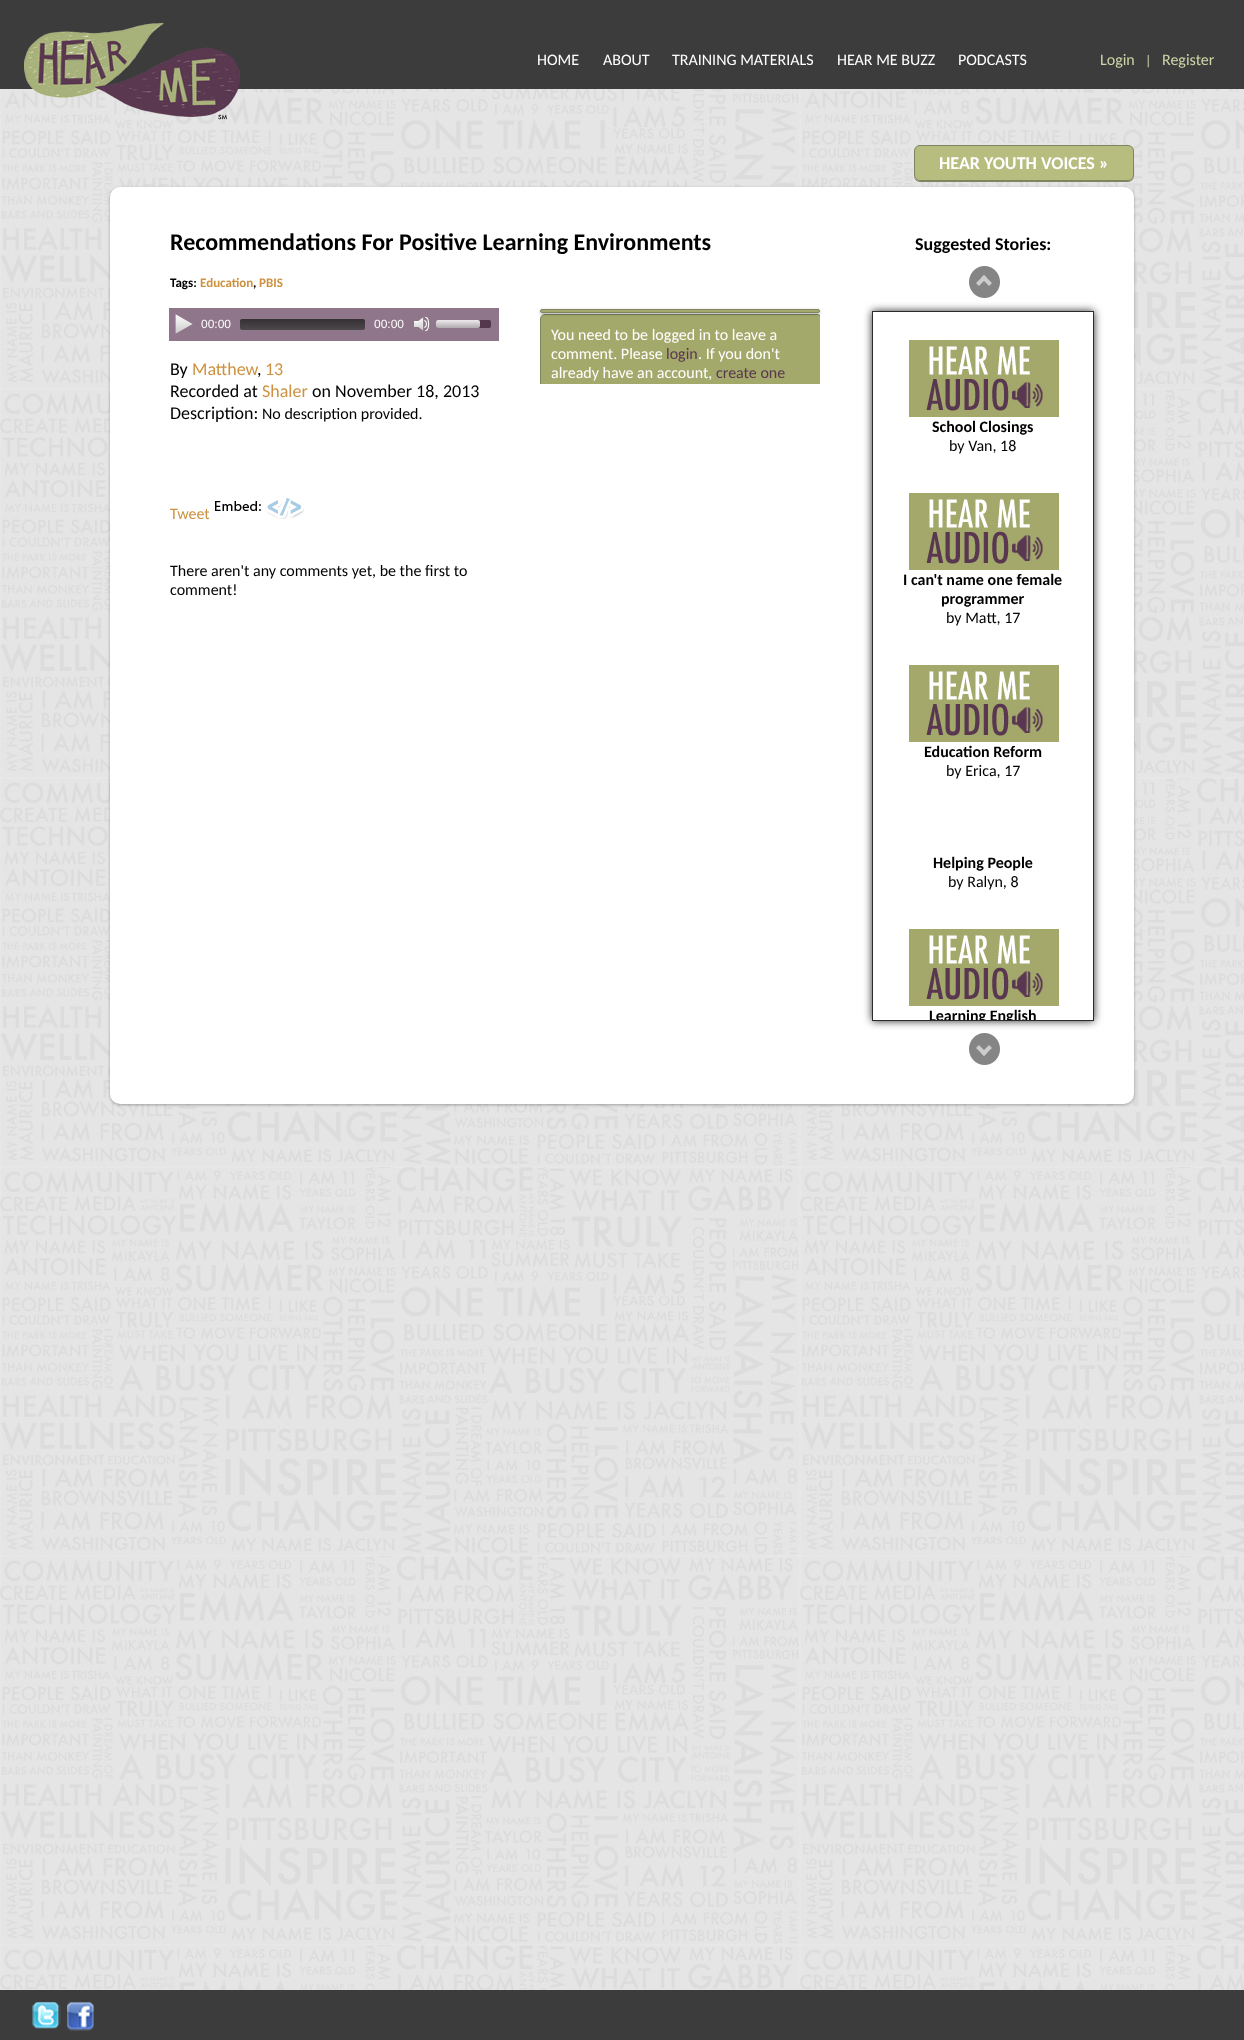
<svg xmlns="http://www.w3.org/2000/svg" width="1244" height="2040">
	<defs>
		<clipPath id="clip1"><path d="M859 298H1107V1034H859ZM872 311H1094V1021H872Z" clip-rule="evenodd" /></clipPath>
		<clipPath id="clip2"><rect x="873" y="312" width="220" height="708" /></clipPath>
		<linearGradient id="g1" gradientUnits="userSpaceOnUse" x1="303" y1="319" x2="303" y2="330"><stop offset="0" stop-color="#353034" /><stop offset="1" stop-color="#4D484C" /></linearGradient>
		<linearGradient id="g2" gradientUnits="userSpaceOnUse" x1="458" y1="320" x2="458" y2="328"><stop offset="0" stop-color="#FFFFFF" stop-opacity="0.9" /><stop offset="1" stop-color="#C8C8C8" stop-opacity="0.8" /></linearGradient>
		<clipPath id="clip3"><rect x="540" y="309" width="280" height="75" /></clipPath>
		<clipPath id="clip4"><rect x="540" y="309" width="280" height="75" /></clipPath>
		<clipPath id="clip5"><path d="M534 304H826V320H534ZM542 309H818C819 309 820 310 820 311C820 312 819 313 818 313H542C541 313 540 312 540 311C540 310 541 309 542 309Z" clip-rule="evenodd" /></clipPath>
	</defs>
	<rect width="100%" height="100%" fill="#FFFFFF" />
	<image x="0" y="89" width="1244" height="1901" href="assets/img1.png" />
	<rect x="0" y="0" width="1244" height="89" fill="#3C3C3C" />
	<image x="24" y="23" width="216" height="97" href="assets/img2.png" />
	<g font-family="Carlito" font-size="16" fill="#FFFFFF">
		<text x="537" y="65">HOME</text>
		<text x="603" y="65">ABOUT</text>
		<text x="672" y="65">TRAINING MATERIALS</text>
		<text x="837" y="65">HEAR ME BUZZ</text>
		<text x="958" y="65">PODCASTS</text>
	</g>
	<text x="1100" y="65" font-family="Carlito" font-size="16" fill="#CED5A7">Login</text>
	<text x="1145" y="65" font-family="Carlito" font-size="14" fill="#CED5A7">|</text>
	<text x="1162" y="65" font-family="Carlito" font-size="16" fill="#CED5A7">Register</text>
	<path d="M914 175V176C914 179 917 182 920 182H1128C1131 182 1134 179 1134 176V175C1134 178 1131 181 1128 181H920C917 181 914 178 914 175Z" fill="#7F8561" />
	<rect x="914.5" y="145.5" width="219" height="35" rx="5.5" fill="#B7BC7F" stroke="#7F8561" />
	<text x="939" y="169" font-family="Carlito" font-size="18" font-weight="700" fill="#FFFFFF">HEAR YOUTH VOICES »</text>
	<rect x="110" y="188" width="1024" height="917" rx="10" fill="#000000" fill-opacity="0.3" filter="blur(1.5px)" />
	<rect x="110" y="187" width="1024" height="917" rx="10" fill="#FFFFFF" />
	<text x="170" y="250" font-family="Carlito" font-size="24" font-weight="700" fill="#000000">Recommendations For Positive Learning Environments</text>
	<text x="915" y="250" font-family="Carlito" font-size="18" font-weight="700" fill="#000000">Suggested Stories:</text>
	<image x="969" y="266" width="31" height="32" href="assets/img3.png" />
	<g clip-path="url(#clip1)">
		<rect x="872" y="311" width="222" height="710" fill="#2D2A2A" filter="blur(4px)" />
	</g>
	<rect x="872.5" y="311.5" width="221" height="709" fill="none" stroke="#2D2A2A" />
	<image x="909" y="340" width="150" height="77" href="assets/img4.png" />
	<text x="932" y="432" font-family="Carlito" font-size="16" font-weight="700" fill="#000000">School Closings</text>
	<text x="949" y="451" font-family="Carlito" font-size="16" fill="#000000">by Van, 18</text>
	<image x="909" y="493" width="150" height="77" href="assets/img4.png" />
	<g font-family="Carlito" font-size="16" font-weight="700" fill="#000000">
		<text x="903" y="585">I can't name one female</text>
		<text x="941" y="604">programmer</text>
	</g>
	<text x="946" y="623" font-family="Carlito" font-size="16" fill="#000000">by Matt, 17</text>
	<image x="909" y="665" width="150" height="77" href="assets/img4.png" />
	<text x="924" y="757" font-family="Carlito" font-size="16" font-weight="700" fill="#000000">Education Reform</text>
	<text x="946" y="776" font-family="Carlito" font-size="16" fill="#000000">by Erica, 17</text>
	<text x="933" y="868" font-family="Carlito" font-size="16" font-weight="700" fill="#000000">Helping People</text>
	<text x="948" y="887" font-family="Carlito" font-size="16" fill="#000000">by Ralyn, 8</text>
	<image x="909" y="929" width="150" height="77" href="assets/img4.png" />
	<g clip-path="url(#clip2)">
		<text x="929" y="1021" font-family="Carlito" font-size="16" font-weight="700" fill="#000000">Learning English</text>
	</g>
	<image x="969" y="1033" width="31" height="32" href="assets/img5.png" />
	<text x="170" y="287" font-family="Carlito" font-size="13" font-weight="700" fill="#000000">Tags:</text>
	<text x="200" y="287" font-family="Carlito" font-size="13" font-weight="700" fill="#CD9241">Education</text>
	<text x="253" y="287" font-family="Carlito" font-size="13" font-weight="700" fill="#000000">,</text>
	<text x="259" y="287" font-family="Carlito" font-size="13" font-weight="700" fill="#CD9241">PBIS</text>
	<rect x="169" y="308" width="330" height="33" fill="#90768B" />
	<image x="175" y="314" width="18" height="20" href="assets/img6.png" />
	<text x="201" y="328" font-family="Liberation Sans" font-size="12" fill="#FFFFFF">00:00</text>
	<rect x="240" y="319" width="125" height="11" rx="2" fill="url(#g1)" />
	<text x="374" y="328" font-family="Liberation Sans" font-size="12" fill="#FFFFFF">00:00</text>
	<image x="414" y="316" width="16" height="16" href="assets/img7.png" />
	<rect x="436" y="320" width="55" height="8" rx="2" fill="#54374C" />
	<rect x="436" y="320" width="44" height="8" rx="2" fill="url(#g2)" />
	<text x="170" y="375" font-family="Carlito" font-size="18" fill="#000000">By</text>
	<text x="192" y="375" font-family="Carlito" font-size="18" fill="#CD9241">Matthew</text>
	<text x="257" y="375" font-family="Carlito" font-size="18" fill="#000000">,</text>
	<text x="265" y="375" font-family="Carlito" font-size="18" fill="#CD9241">13</text>
	<text x="170" y="397" font-family="Carlito" font-size="18" fill="#000000">Recorded at</text>
	<text x="262" y="397" font-family="Carlito" font-size="18" fill="#CD9241">Shaler</text>
	<g font-family="Carlito" font-size="18" fill="#000000">
		<text x="312" y="397">on November 18, 2013</text>
		<text x="170" y="419">Description:</text>
	</g>
	<text x="262" y="419" font-family="Carlito" font-size="16" fill="#000000">No description provided.</text>
	<text x="170" y="519" font-family="Carlito" font-size="16" fill="#CD9241">Tweet</text>
	<image x="215" y="498" width="89" height="21" href="assets/img8.png" />
	<g font-family="Carlito" font-size="16" fill="#000000">
		<text x="170" y="576">There aren't any comments yet, be the first to</text>
		<text x="170" y="595">comment!</text>
	</g>
	<g clip-path="url(#clip3)">
		<rect x="540" y="315" width="282" height="98" rx="5" fill="#000000" fill-opacity="0.3" filter="blur(1.5px)" />
	</g>
	<g clip-path="url(#clip4)">
		<rect x="540.5" y="314.5" width="281" height="97" rx="4.5" fill="#A3A86B" stroke="#7F8561" />
	</g>
	<g clip-path="url(#clip5)">
		<rect x="540" y="310" width="280" height="4" rx="2" fill="#000000" fill-opacity="0.3" filter="blur(1.5px)" />
	</g>
	<rect x="540.5" y="309.5" width="279" height="3" rx="1.5" fill="#A3A86B" stroke="#7F8561" />
	<g font-family="Carlito" font-size="16" fill="#FFFFFF">
		<text x="551" y="340">You need to be logged in to leave a</text>
		<text x="551" y="359">comment. Please</text>
	</g>
	<text x="666" y="359" font-family="Carlito" font-size="16" fill="#593750">login</text>
	<g font-family="Carlito" font-size="16" fill="#FFFFFF">
		<text x="698" y="359">. If you don't</text>
		<text x="551" y="378">already have an account,</text>
	</g>
	<text x="716" y="378" font-family="Carlito" font-size="16" fill="#593750">create one</text>
	<rect x="0" y="1990" width="1244" height="50" fill="#3C3C3C" />
	<image x="32" y="2002" width="29" height="27" href="assets/img9.png" />
	<image x="67" y="2002" width="27" height="29" href="assets/img10.png" />
</svg>
